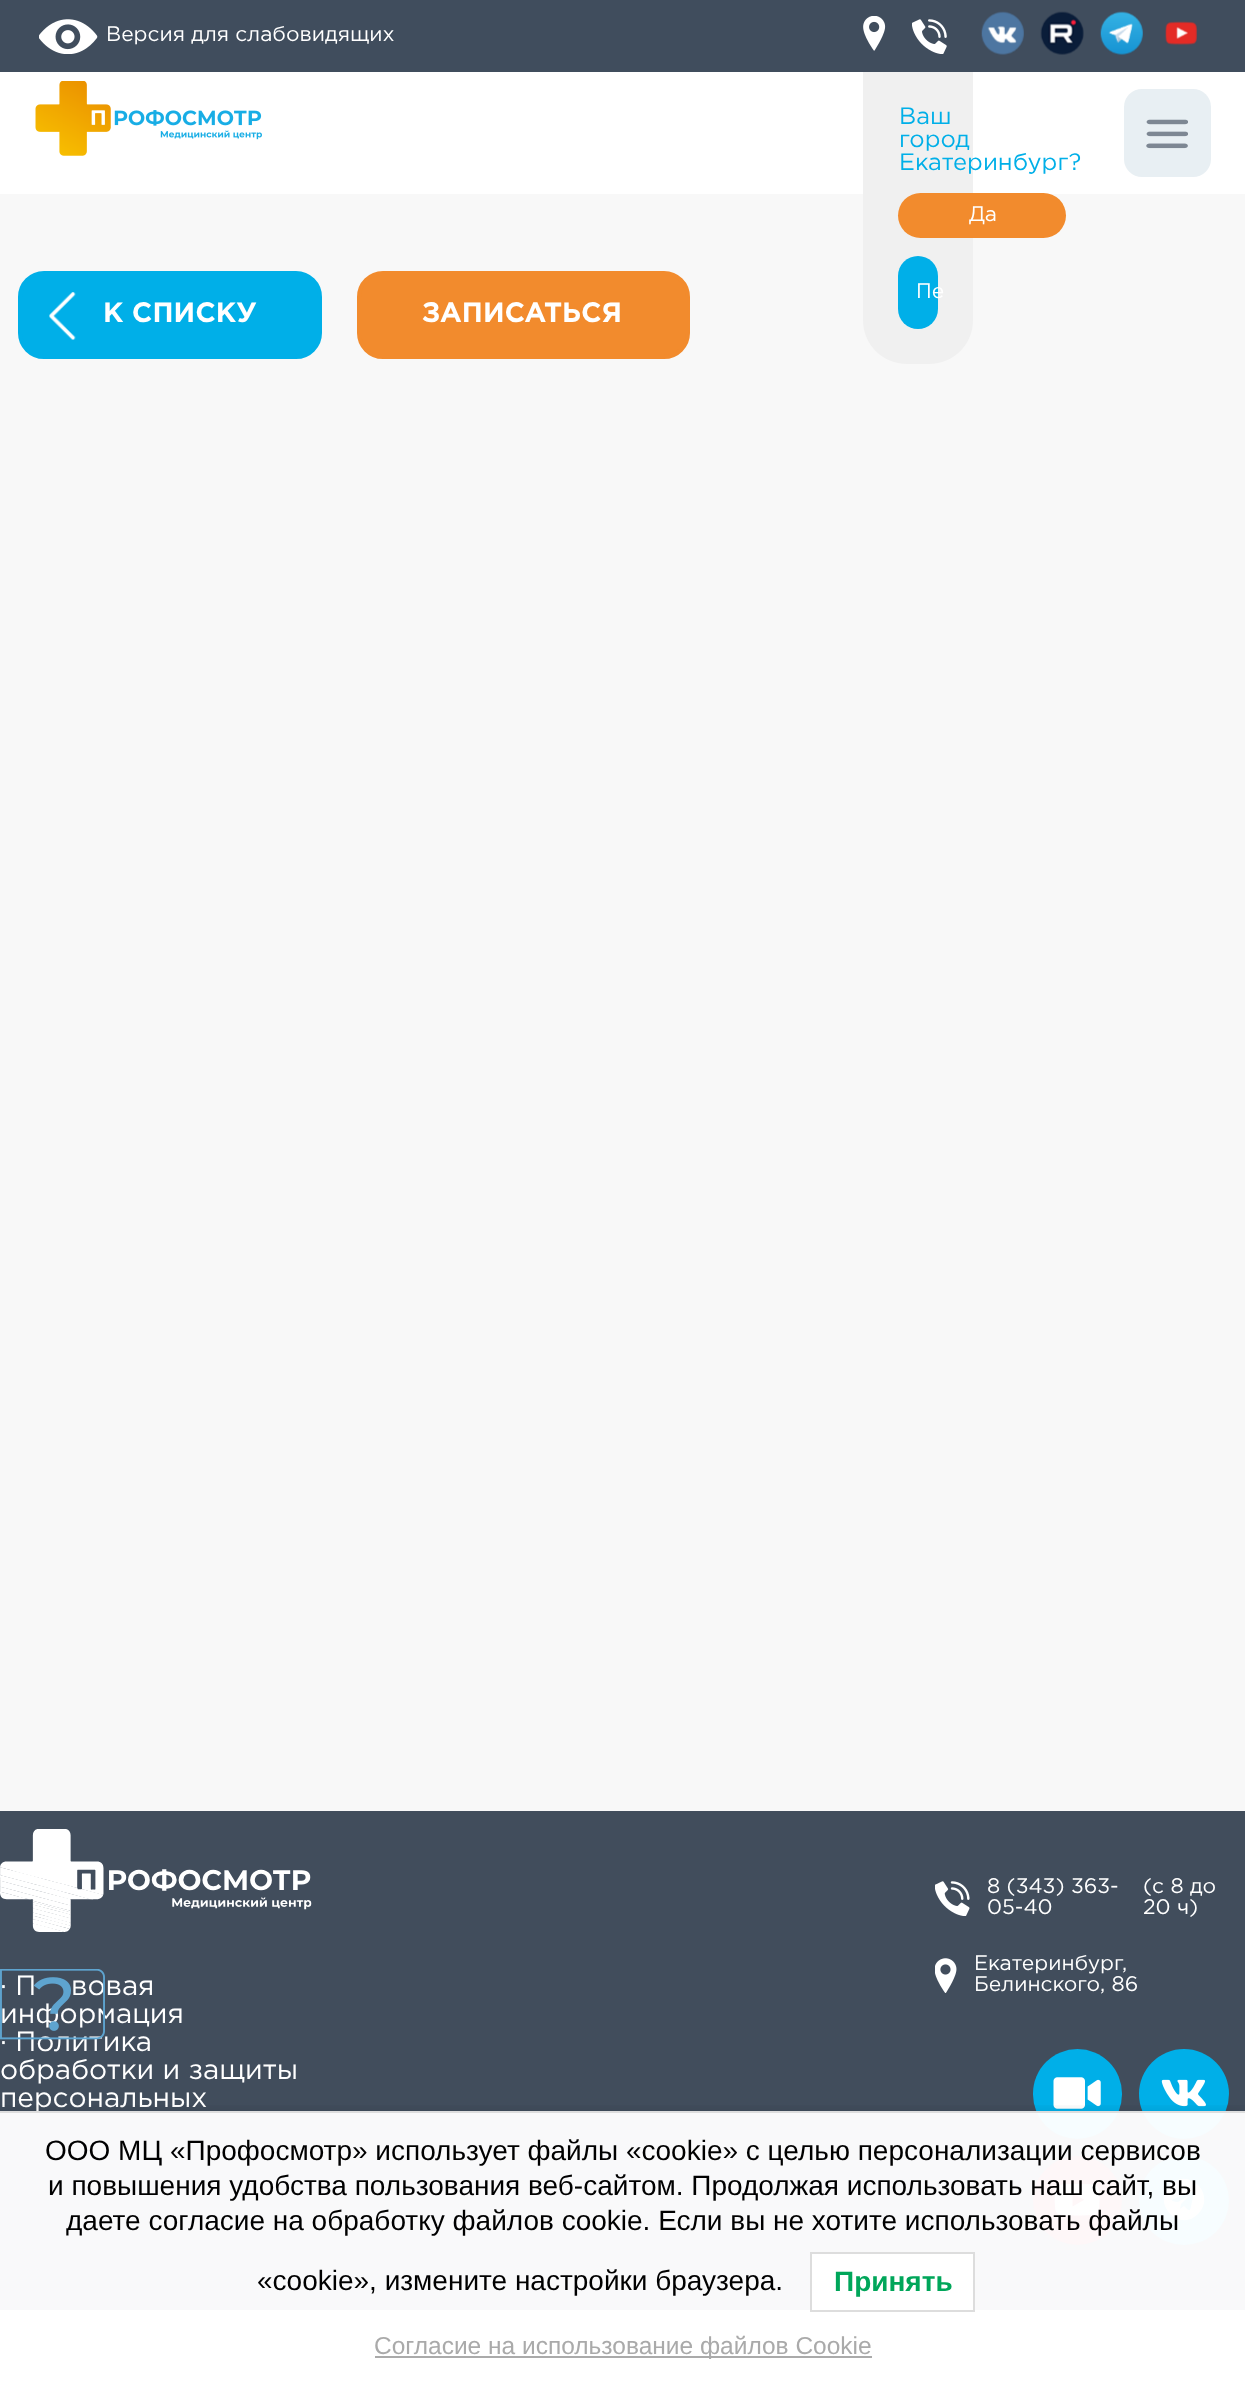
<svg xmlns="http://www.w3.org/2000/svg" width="1245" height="2382">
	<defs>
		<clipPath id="clip1"><rect x="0" y="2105" width="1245" height="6" /></clipPath>
	</defs>
	<rect width="100%" height="100%" fill="#FFFFFF" />
	<rect x="0" y="0" width="1245" height="72" fill="#404D5D" />
	<image x="39" y="19" width="59" height="35" href="assets/img1.png" />
	<text x="106" y="41" font-family="Gotham" font-size="21" fill="#FFFFFF">Версия для слабовидящих</text>
	<image x="912" y="19" width="35" height="35" href="assets/img2.png" />
	<image x="981" y="11" width="43" height="44" href="assets/img3.png" />
	<image x="1040" y="11" width="44" height="44" href="assets/img4.png" />
	<image x="1100" y="11" width="43" height="44" href="assets/img5.png" />
	<image x="1165" y="21" width="33" height="24" href="assets/img6.png" />
	<image x="863" y="16" width="23" height="35" href="assets/img7.png" />
	<rect x="0" y="194" width="1245" height="1617" fill="#F8F8F8" />
	<path d="M863 72H973V320C973 344.5 953.5 364 929 364H907C882.5 364 863 344.5 863 320Z" fill="#F0F0F0" />
	<g font-family="Gotham" font-size="23.75" fill="#00AFE8">
		<text x="899" y="124">Ваш</text>
		<text x="899" y="147">город</text>
		<text x="899" y="170">Екатеринбург?</text>
	</g>
	<rect x="898" y="193" width="168" height="45" rx="22.5" fill="#F28B2D" />
	<text x="969" y="221" font-family="Gotham" font-size="21" fill="#FFFFFF">Да</text>
	<rect x="898" y="256" width="40" height="73" rx="20" fill="#00AFE8" />
	<text x="916" y="298" font-family="Gotham" font-size="21" fill="#FFFFFF">Пе</text>
	<image x="35" y="81" width="227" height="75" href="assets/img8.png" />
	<rect x="1124" y="89" width="87" height="88" rx="18" fill="#E8EFF3" />
	<image x="1146" y="119" width="42" height="30" href="assets/img9.png" />
	<rect x="20" y="273" width="300" height="84" rx="24" fill="#00AFE8" stroke="#00AFE8" stroke-width="4" />
	<image x="49" y="292" width="27" height="48" href="assets/img10.png" />
	<text x="103" y="322" font-family="Gotham" font-size="28" font-weight="700" fill="#FFFFFF">К СПИСКУ</text>
	<rect x="359" y="273" width="329" height="84" rx="24" fill="#F28B2D" stroke="#F28B2D" stroke-width="4" />
	<text x="422" y="322" font-family="Gotham" font-size="28" font-weight="700" fill="#FFFFFF">ЗАПИСАТЬСЯ</text>
	<rect x="0" y="1811" width="1245" height="499" fill="#414D5C" />
	<image x="935" y="1881" width="35" height="35" href="assets/img11.png" />
	<g font-family="Gotham" font-size="21" fill="#FFFFFF">
		<text x="987" y="1893">8 (343) 363-</text>
		<text x="1143" y="1893">(с 8 до</text>
		<text x="1143" y="1914">20 ч)</text>
		<text x="987" y="1914">05-40</text>
	</g>
	<image x="935" y="1958" width="22" height="35" href="assets/img12.png" />
	<g font-family="Gotham" font-size="21" fill="#FFFFFF">
		<text x="974" y="1970">Екатеринбург,</text>
		<text x="974" y="1991">Белинского, 86</text>
	</g>
	<rect x="1033" y="2049" width="89" height="90" rx="44.5" fill="#00AFE8" />
	<image x="1053" y="2077" width="48" height="32" href="assets/img13.png" />
	<circle cx="1184" cy="2094" r="45" fill="#00AFE8" />
	<image x="1161" y="2079" width="45" height="28" href="assets/img14.png" />
	<circle cx="1077.5" cy="2200.5" r="44.5" fill="#CC0033" />
	<image x="1054" y="2184" width="46" height="32" href="assets/img15.png" />
	<rect x="1139" y="2156" width="90" height="89" rx="44.5" fill="#00AFE8" />
	<path d="M1170 2185C1189 2166 1217 2195 1198 2214C1180 2233 1151 2204 1170 2185ZM1194 2193C1195 2189 1187 2194 1186 2194L1176 2198C1169 2201 1172 2201 1178 2202L1190 2195L1181 2204L1180 2209L1184 2206C1188 2210 1190 2213 1191 2206Z" fill="#FFFFFF" />
	<image x="0" y="1829" width="312" height="103" href="assets/img16.png" />
	<g font-family="Gotham" font-size="28" fill="#FFFFFF">
		<text x="0" y="1995">· П</text>
		<text x="71" y="1995">вовая</text>
		<text x="0" y="2023">информация</text>
		<text x="0" y="2051">· Политика</text>
		<text x="0" y="2079">обработки и защиты</text>
		<text x="0" y="2107">персональных</text>
	</g>
	<image x="0" y="1969" width="105" height="71" href="assets/img17.png" />
	<g clip-path="url(#clip1)">
		<rect x="0" y="2111" width="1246" height="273" fill="#000000" fill-opacity="0.1" filter="blur(7px)" />
	</g>
	<rect x="0" y="2113" width="1245" height="197" fill="#FFFFFF" fill-opacity="0.97" />
	<rect x="0" y="2111" width="1245" height="2" fill="#DDDDDD" />
	<g font-family="Liberation Sans" font-size="28" fill="#000000">
		<text x="45" y="2160">ООО МЦ «Профосмотр» использует файлы «cookie» с целью персонализации сервисов</text>
		<text x="48" y="2195">и повышения удобства пользования веб-сайтом. Продолжая использовать наш сайт, вы</text>
		<text x="66" y="2230">даете согласие на обработку файлов cookie. Если вы не хотите использовать файлы</text>
		<text x="257" y="2290">«cookie», измените настройки браузера.</text>
	</g>
	<rect x="811" y="2253" width="163" height="58" fill="#FFFFFF" stroke="#DDDDDD" stroke-width="2" />
	<text x="834" y="2291" font-family="Liberation Sans" font-size="28" font-weight="700" fill="#00A65A">Принять</text>
	<rect x="375" y="2356" width="497" height="2" fill="#AAAAAA" />
	<text x="374" y="2354" font-family="Liberation Sans" font-size="24.5" fill="#AAAAAA">Согласие на использование файлов Cookie</text>
</svg>
